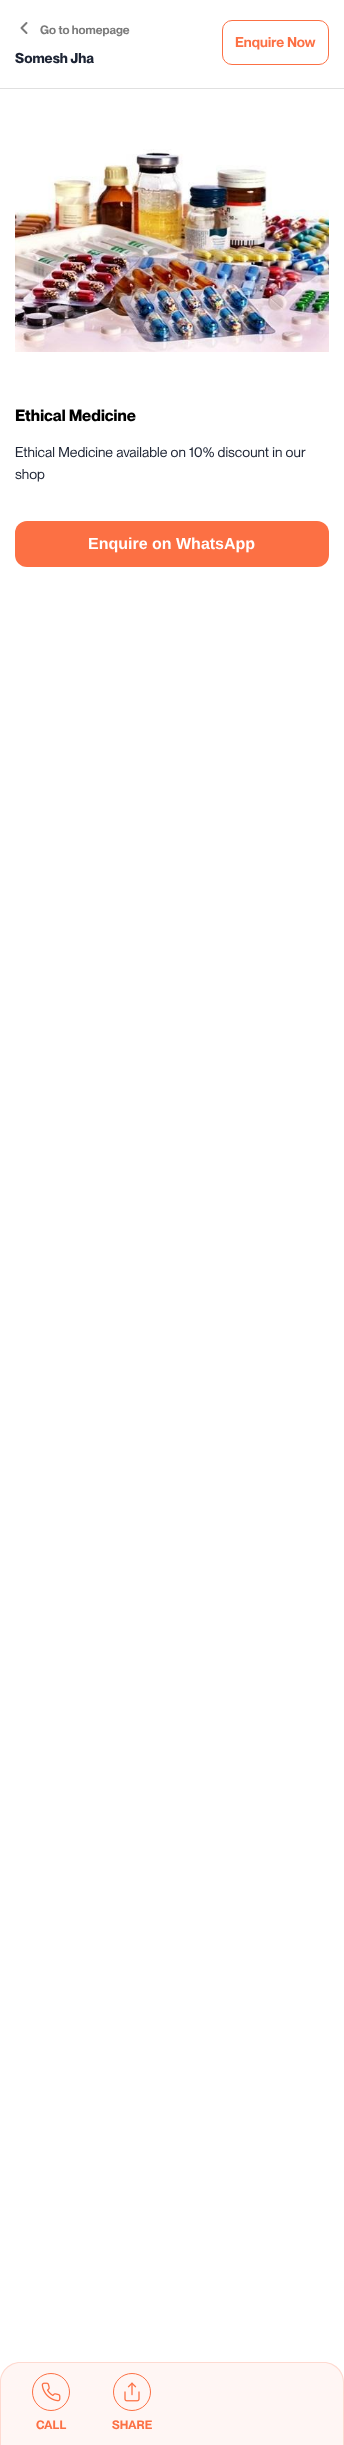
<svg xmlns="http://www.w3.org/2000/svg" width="344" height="2445">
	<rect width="100%" height="100%" fill="#FFFFFF" />
	<rect x="0" y="88" width="344" height="1" fill="#E0E0E0" />
	<text x="40" y="34" font-family="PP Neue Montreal" font-size="12" font-weight="600" fill="#7A7A7A">Go to homepage</text>
	<path d="M26.5 23L21.5 28L26.5 33" fill="none" stroke="#7A7A7A" stroke-width="2" stroke-linecap="round" stroke-linejoin="round" />
	<text x="15" y="63" font-family="PP Neue Montreal" font-size="14" font-weight="700" fill="#1D2434">Somesh Jha</text>
	<rect x="222.5" y="20.5" width="106" height="44" rx="9.5" fill="none" stroke="#FC7044" />
	<text x="235" y="47" font-family="PP Neue Montreal" font-size="14" font-weight="600" fill="#FC7044">Enquire Now</text>
	<image x="15" y="149" width="314" height="203" href="assets/img1.png" />
	<text x="15" y="421" font-family="PP Neue Montreal" font-size="16" font-weight="700" fill="#000000">Ethical Medicine</text>
	<g font-family="PP Neue Montreal" font-size="14" fill="#1D2434">
		<text x="15" y="457">Ethical Medicine available on 10% discount in our</text>
		<text x="15" y="479">shop</text>
	</g>
	<rect x="15" y="521" width="314" height="46" rx="12" fill="#FC7044" />
	<text x="88" y="549" font-family="Liberation Sans" font-size="16" font-weight="700" fill="#FFFFFF">Enquire on WhatsApp</text>
	<path d="M20 2362H324C335 2362 344 2371 344 2382V2445H0V2382C0 2371 9 2362 20 2362Z" fill="#FFF6F4" />
	<path d="M20 2362H324C335 2362 344 2371 344 2382V2445H0V2382C0 2371 9 2362 20 2362ZM20 2363H324C334 2363 343 2372 343 2382V2445H1V2382C1 2372 10 2363 20 2363Z" fill="#FC7044" fill-opacity="0.2" fill-rule="evenodd" />
	<circle cx="51" cy="2392" r="18.5" fill="none" stroke="#FC7044" />
	<image x="41" y="2382" width="20" height="20" href="assets/img2.png" />
	<text x="36" y="2429" font-family="PP Neue Montreal" font-size="12" font-weight="600" fill="#FC7044">CALL</text>
	<circle cx="132" cy="2392" r="18.5" fill="none" stroke="#FC7044" />
	<image x="124" y="2382" width="16" height="20" href="assets/img3.png" />
	<text x="112" y="2429" font-family="PP Neue Montreal" font-size="12" font-weight="600" fill="#FC7044">SHARE</text>
</svg>
